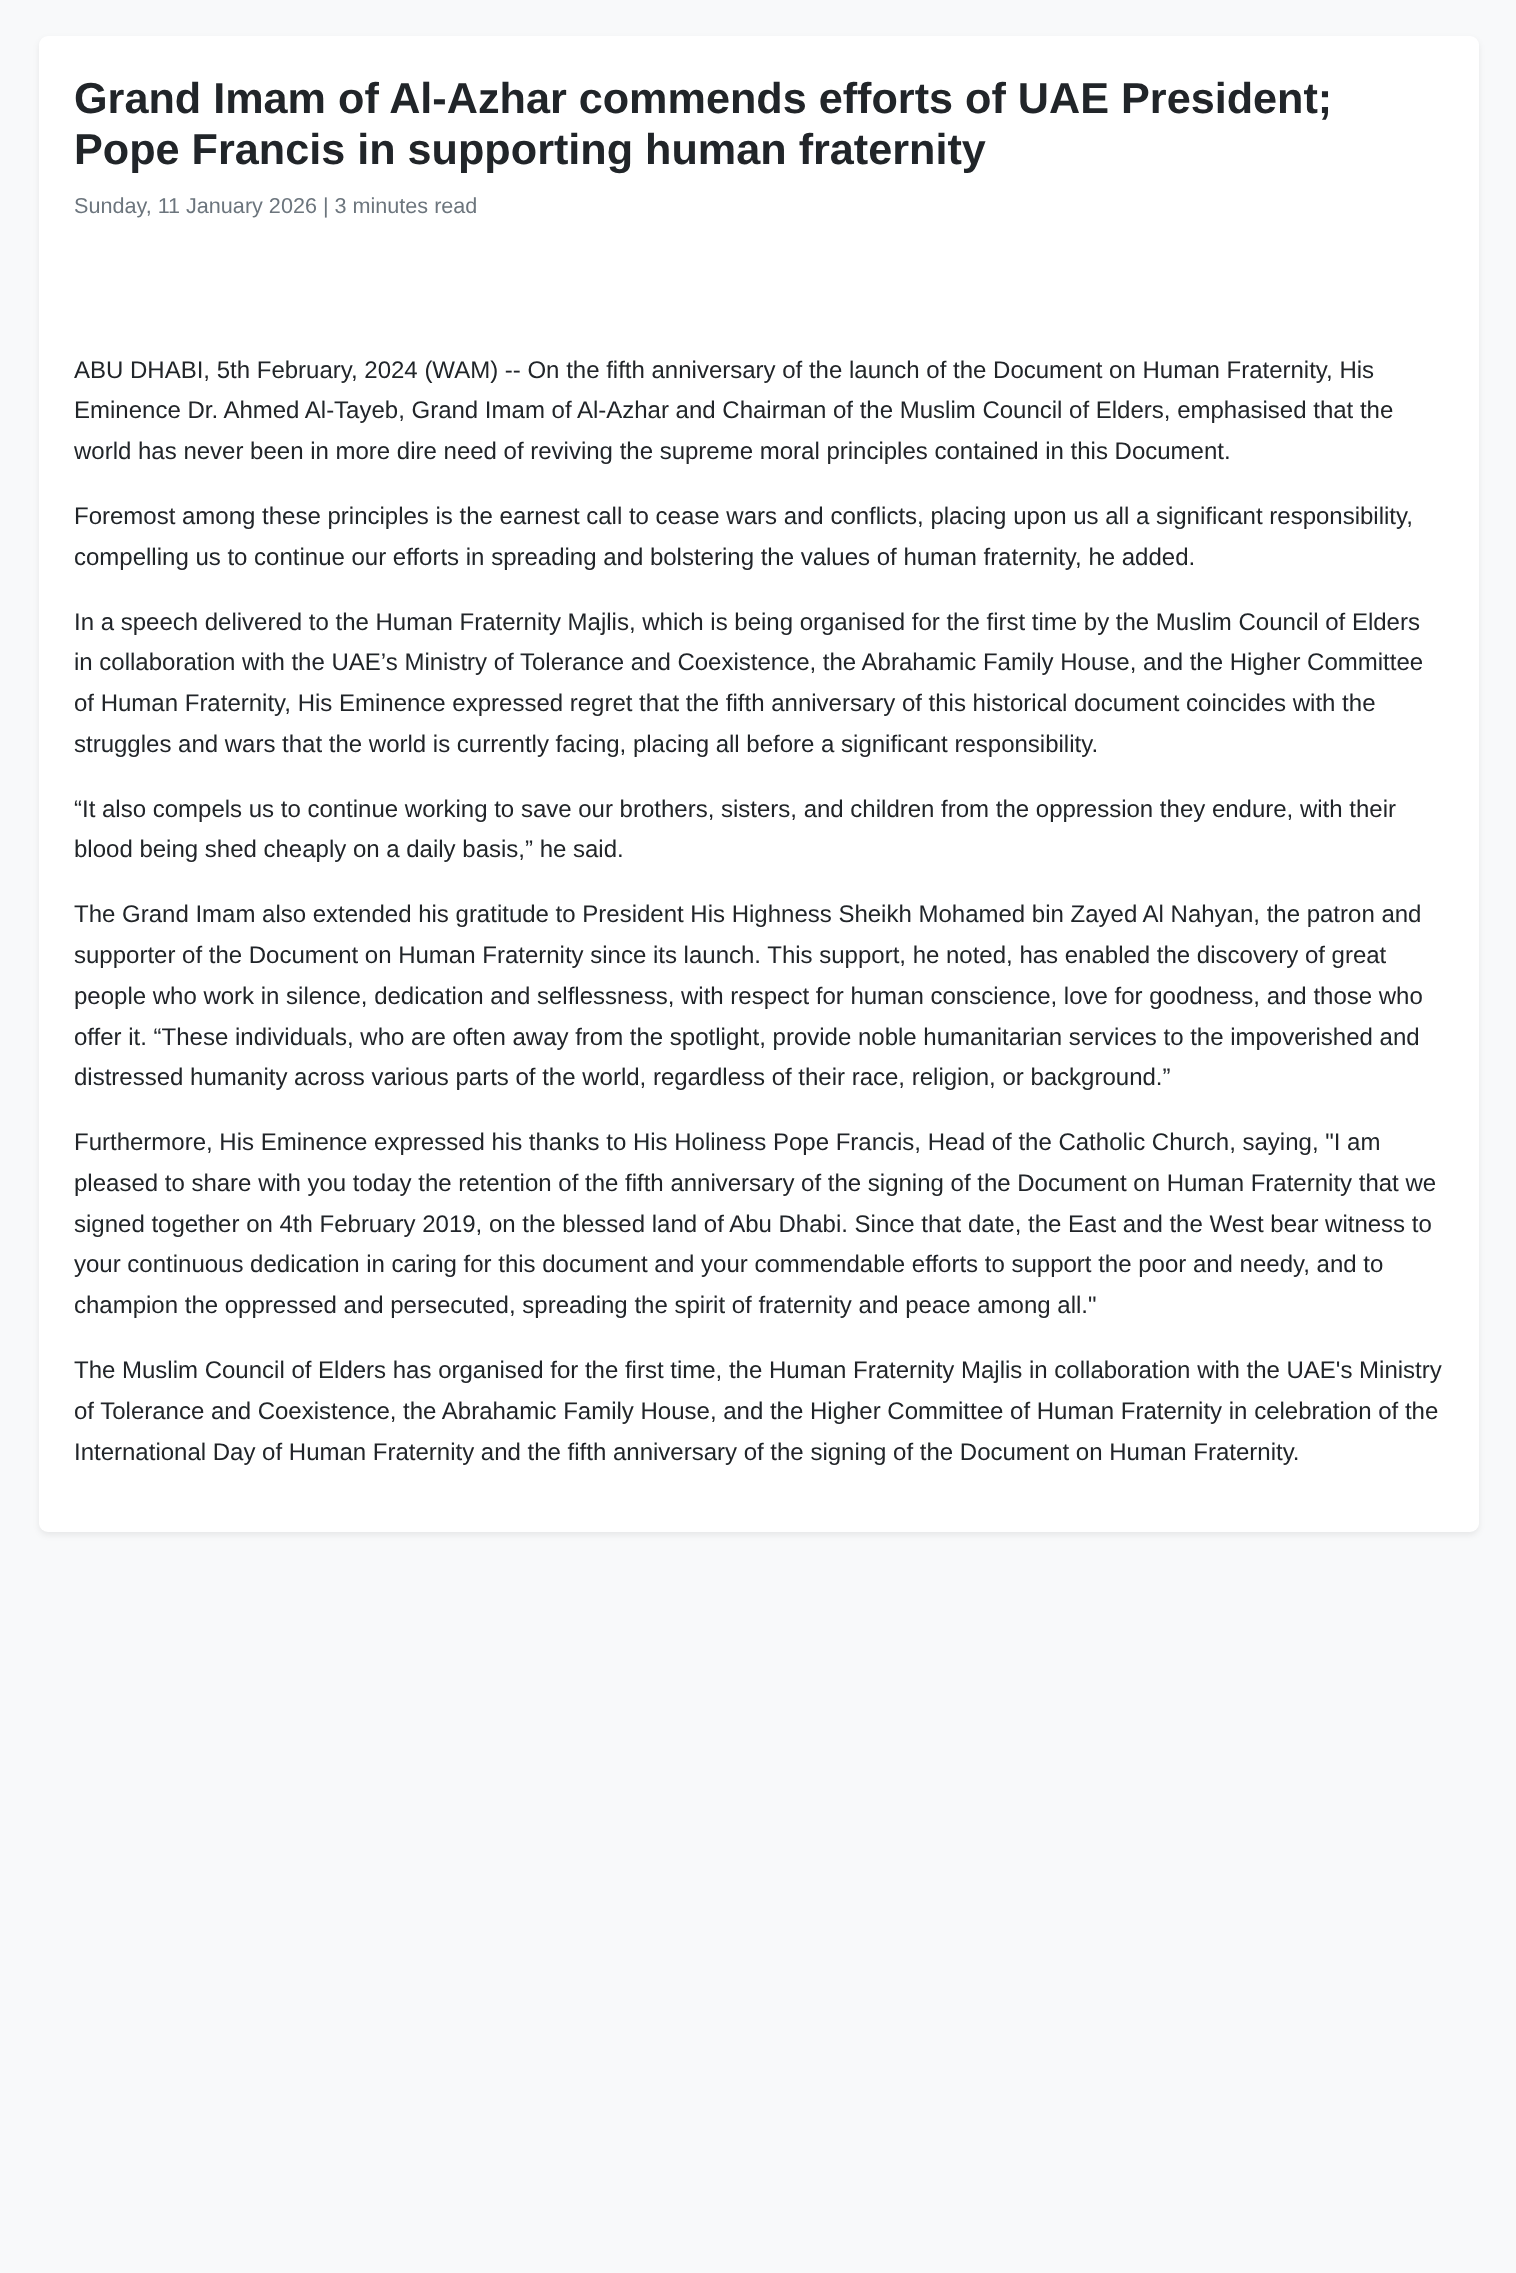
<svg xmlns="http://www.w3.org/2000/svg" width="1516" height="2273">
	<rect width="100%" height="100%" fill="#F8F9FA" />
	<rect x="39" y="39" width="1440" height="1496" rx="9" fill="#000000" fill-opacity="0.07" filter="blur(3px)" />
	<rect x="39" y="36" width="1440" height="1496" rx="9" fill="#FFFFFF" />
	<g font-family="Liberation Sans" font-size="43.2" font-weight="700" fill="#212529">
		<text x="74" y="113">Grand Imam of Al-Azhar commends efforts of UAE President;</text>
		<text x="74" y="164">Pope Francis in supporting human fraternity</text>
	</g>
	<text x="74" y="213" font-family="Liberation Sans" font-size="21.6" fill="#6C757D">Sunday, 11 January 2026 | 3 minutes read</text>
	<g font-family="Liberation Sans" font-size="24" fill="#212529">
		<text x="74" y="378">ABU DHABI, 5th February, 2024 (WAM) -- On the fifth anniversary of the launch of the Document on Human Fraternity, His</text>
		<text x="74" y="418">Eminence Dr. Ahmed Al-Tayeb, Grand Imam of Al-Azhar and Chairman of the Muslim Council of Elders, emphasised that the</text>
		<text x="74" y="459">world has never been in more dire need of reviving the supreme moral principles contained in this Document.</text>
		<text x="74" y="524">Foremost among these principles is the earnest call to cease wars and conflicts, placing upon us all a significant responsibility,</text>
		<text x="74" y="565">compelling us to continue our efforts in spreading and bolstering the values of human fraternity, he added.</text>
		<text x="74" y="630">In a speech delivered to the Human Fraternity Majlis, which is being organised for the first time by the Muslim Council of Elders</text>
		<text x="74" y="670">in collaboration with the UAE’s Ministry of Tolerance and Coexistence, the Abrahamic Family House, and the Higher Committee</text>
		<text x="74" y="711">of Human Fraternity, His Eminence expressed regret that the fifth anniversary of this historical document coincides with the</text>
		<text x="74" y="752">struggles and wars that the world is currently facing, placing all before a significant responsibility.</text>
		<text x="74" y="817">“It also compels us to continue working to save our brothers, sisters, and children from the oppression they endure, with their</text>
		<text x="74" y="857">blood being shed cheaply on a daily basis,” he said.</text>
		<text x="74" y="922">The Grand Imam also extended his gratitude to President His Highness Sheikh Mohamed bin Zayed Al Nahyan, the patron and</text>
		<text x="74" y="963">supporter of the Document on Human Fraternity since its launch. This support, he noted, has enabled the discovery of great</text>
		<text x="74" y="1004">people who work in silence, dedication and selflessness, with respect for human conscience, love for goodness, and those who</text>
		<text x="74" y="1045">offer it. “These individuals, who are often away from the spotlight, provide noble humanitarian services to the impoverished and</text>
		<text x="74" y="1085">distressed humanity across various parts of the world, regardless of their race, religion, or background.”</text>
		<text x="74" y="1150">Furthermore, His Eminence expressed his thanks to His Holiness Pope Francis, Head of the Catholic Church, saying, "I am</text>
		<text x="74" y="1191">pleased to share with you today the retention of the fifth anniversary of the signing of the Document on Human Fraternity that we</text>
		<text x="74" y="1232">signed together on 4th February 2019, on the blessed land of Abu Dhabi. Since that date, the East and the West bear witness to</text>
		<text x="74" y="1272">your continuous dedication in caring for this document and your commendable efforts to support the poor and needy, and to</text>
		<text x="74" y="1313">champion the oppressed and persecuted, spreading the spirit of fraternity and peace among all."</text>
		<text x="74" y="1378">The Muslim Council of Elders has organised for the first time, the Human Fraternity Majlis in collaboration with the UAE's Ministry</text>
		<text x="74" y="1419">of Tolerance and Coexistence, the Abrahamic Family House, and the Higher Committee of Human Fraternity in celebration of the</text>
		<text x="74" y="1460">International Day of Human Fraternity and the fifth anniversary of the signing of the Document on Human Fraternity.</text>
	</g>
</svg>
